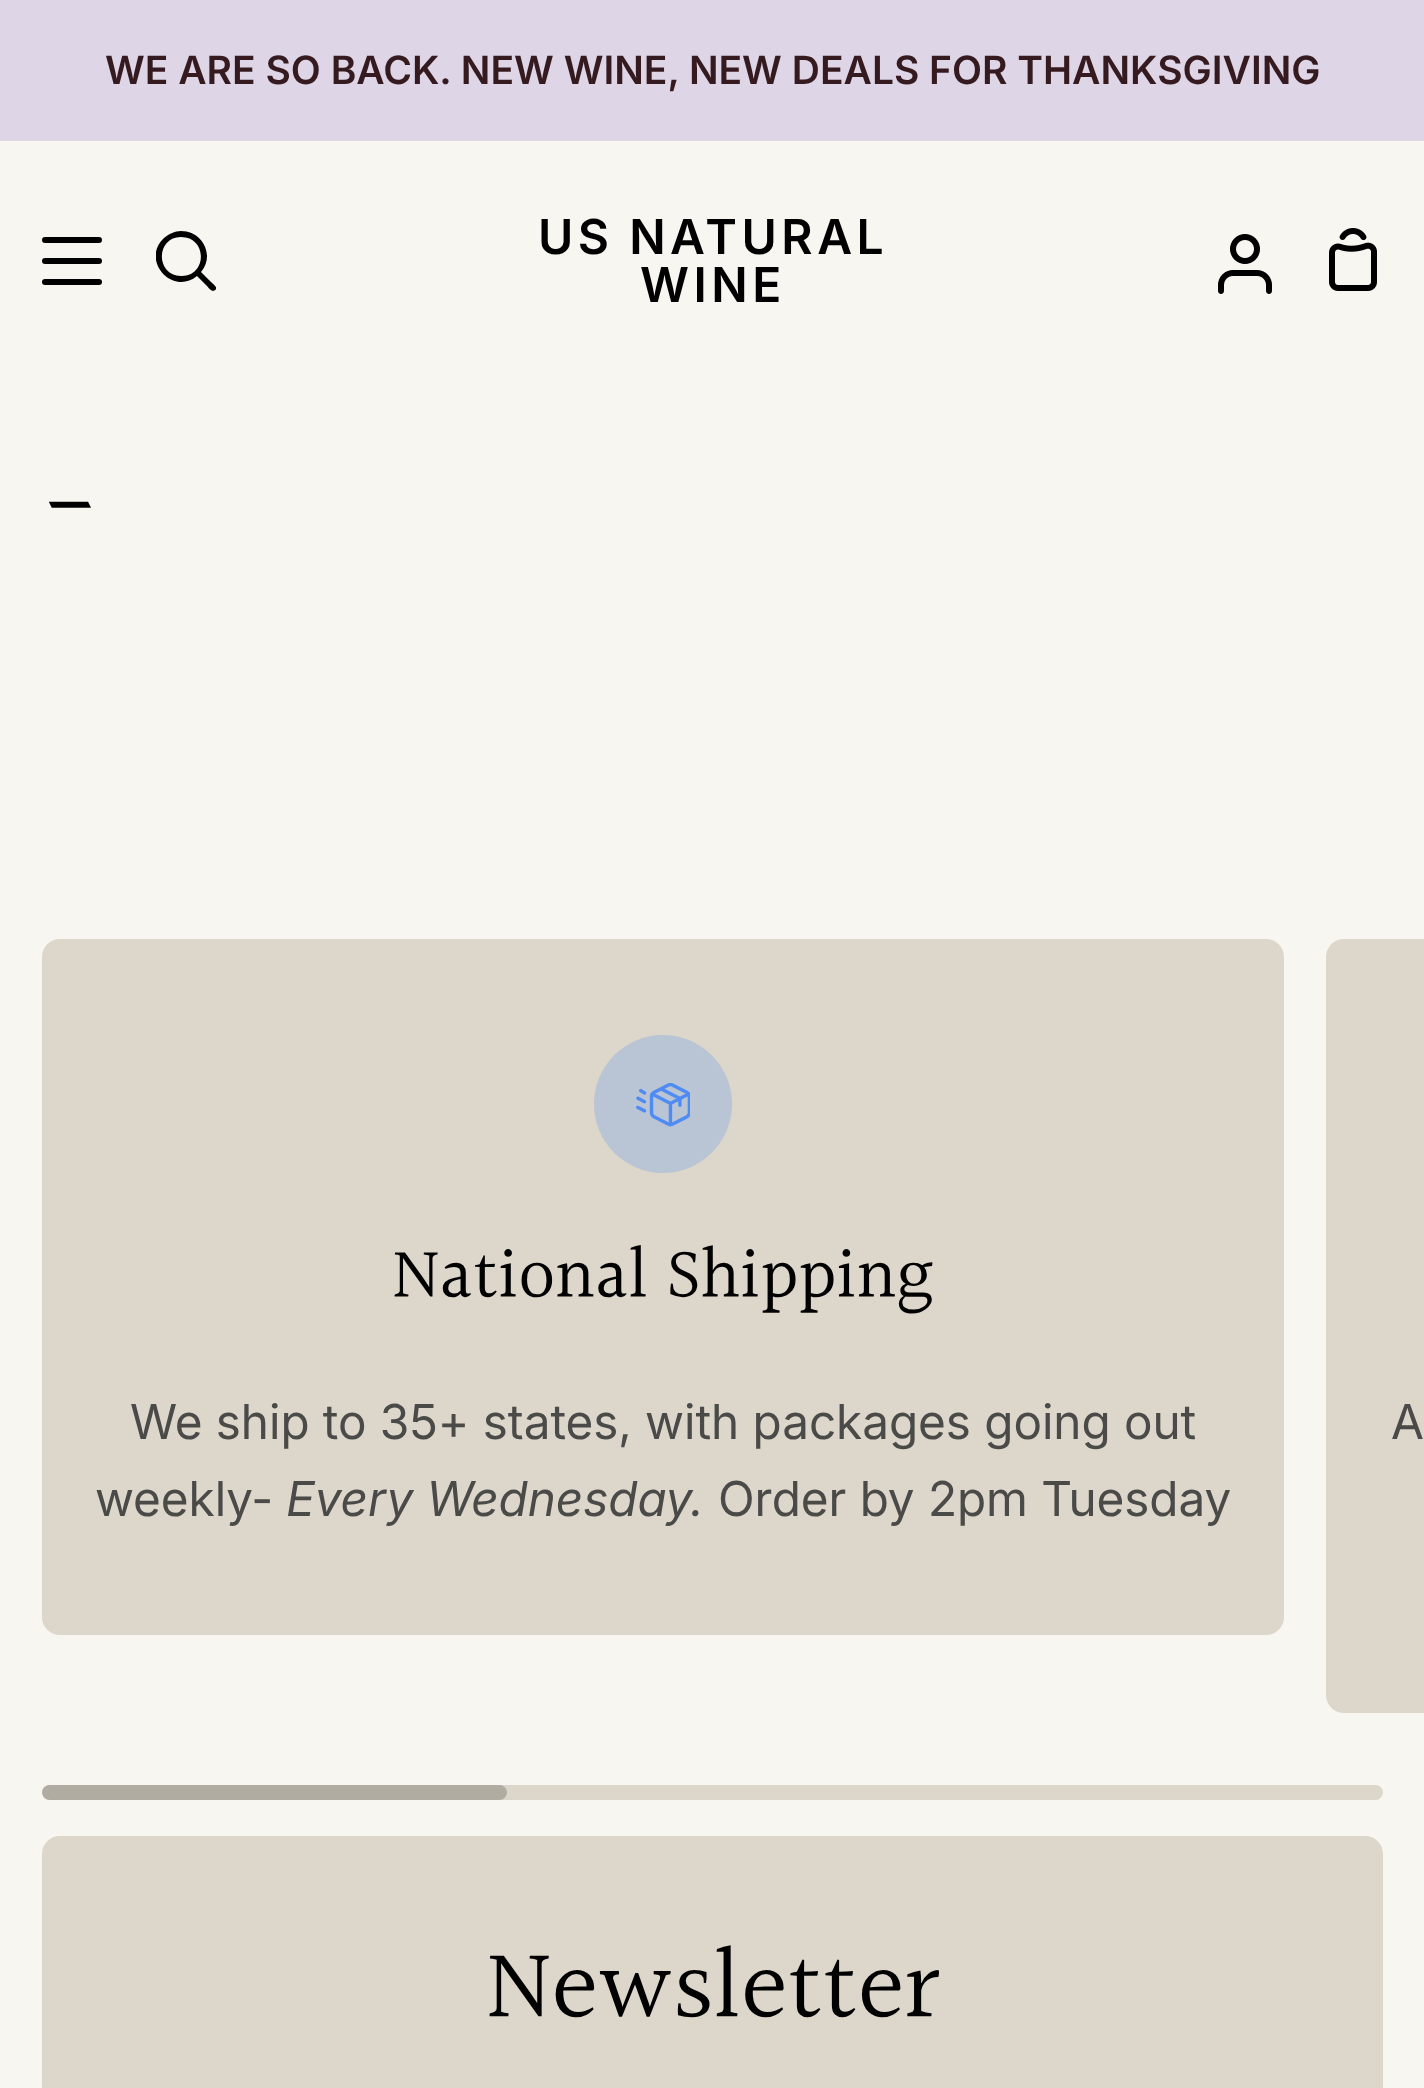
<svg xmlns="http://www.w3.org/2000/svg" width="1424" height="2088">
	<defs>
		<clipPath id="clip1"><rect x="156" y="231" width="60" height="60" /></clipPath>
	</defs>
	<rect width="100%" height="100%" fill="#F7F6F0" />
	<rect x="0" y="0" width="1424" height="141" fill="#DED6E7" />
	<text x="105" y="84" font-family="Inter" font-size="39" font-weight="600" fill="#351B20">WE ARE SO BACK. NEW WINE, NEW DEALS FOR THANKSGIVING</text>
	<rect x="42" y="237" width="60" height="6" rx="3" fill="#000000" />
	<rect x="42" y="258" width="60" height="6" rx="3" fill="#000000" />
	<rect x="42" y="279" width="60" height="6" rx="3" fill="#000000" />
	<g clip-path="url(#clip1)">
		<path d="M181 231C203 231 215 256 201 272L211 282C212 283 219 288 215 290C212 293 208 287 207 286L197 276C173 296 141 261 163 239C168 234 175 231 181 231ZM181 237C156 237 155 275 181 276C207 277 208 237 181 237Z" fill="#000000" />
	</g>
	<g font-family="Inter" font-size="48" font-weight="600" letter-spacing="4.5" fill="#000000">
		<text x="538" y="254" word-spacing="-1">US NATURAL</text>
		<text x="640" y="302">WINE</text>
	</g>
	<image x="1218" y="234" width="54" height="60" href="assets/img1.png" />
	<image x="1329" y="228" width="48" height="63" href="assets/img2.png" />
	<text x="43" y="542" font-family="Halant" font-size="99" fill="#000000">-</text>
	<rect x="42" y="939" width="1242" height="696" rx="18" fill="#DCD7CA" />
	<image x="636" y="1082" width="54" height="45" href="assets/img3.png" />
	<circle cx="663" cy="1104" r="69" fill="#4F8BF2" fill-opacity="0.25" />
	<text x="392" y="1300" font-family="Halant" font-size="72" fill="#000000">National Shipping</text>
	<g font-family="Inter" font-size="48" fill="#4A4A48">
		<text x="130" y="1439">We ship to 35+ states, with packages going out</text>
		<text x="95" y="1516">weekly-</text>
	</g>
	<text x="286" y="1516" font-family="Inter" font-size="48" font-style="italic" fill="#4A4A48">Every Wednesday.</text>
	<text x="718" y="1516" font-family="Inter" font-size="48" fill="#4A4A48">Order by 2pm Tuesday</text>
	<path d="M1344 939H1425V1713H1344C1334 1713 1326 1705 1326 1695V957C1326 947 1334 939 1344 939Z" fill="#DCD7CA" />
	<text x="1391" y="1439" font-family="Inter" font-size="48" fill="#4A4A48">A</text>
	<rect x="42" y="1785" width="1341" height="15" rx="7.5" fill="#DCD7CA" />
	<rect x="42" y="1785" width="465" height="15" rx="7.5" fill="#000000" fill-opacity="0.2" />
	<rect x="42" y="1836" width="1341" height="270" rx="18" fill="#DCD7CA" />
	<text x="486" y="2021" font-family="Halant" font-size="99" fill="#000000">Newsletter</text>
</svg>
